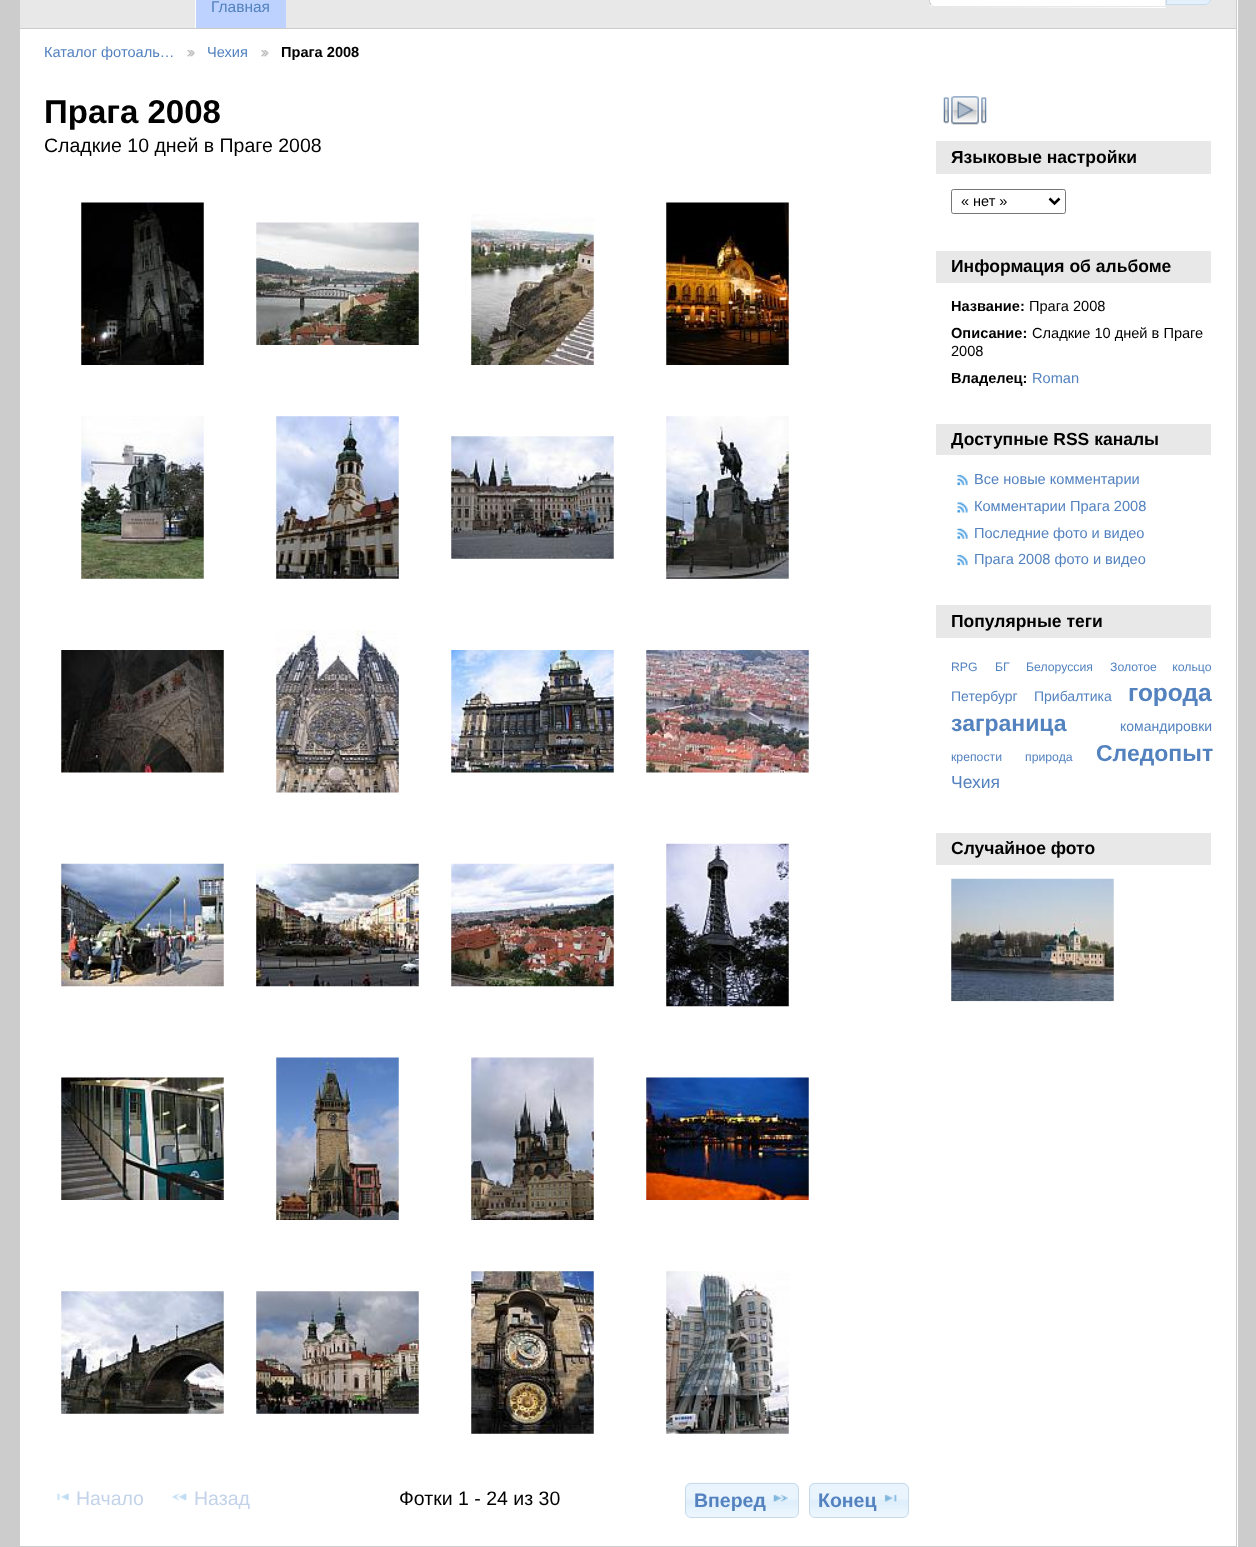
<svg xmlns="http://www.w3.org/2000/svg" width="1256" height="1547">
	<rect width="100%" height="100%" fill="#CCCCCC" />
	<rect x="20" y="0" width="1218" height="1547" fill="#FFFFFF" />
	<rect x="1236" y="0" width="1" height="1547" fill="#CCCCCC" />
	<rect x="20" y="0" width="1216" height="28" fill="#E8E8E8" />
	<rect x="20" y="28" width="1216" height="1" fill="#CCCCCC" />
	<rect x="196" y="0" width="90" height="28" fill="#BDD2FF" />
	<rect x="195" y="0" width="1" height="28" fill="#FFFFFF" />
	<text x="211" y="12" font-family="Liberation Sans" font-size="15.5" fill="#5382BF">Главная</text>
	<path d="M935-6H1166V8H935C931.5 8 929 5.5 929 2V0C929-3.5 931.5-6 935-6Z" fill="#FFFFFF" />
	<path d="M1166 7V-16L1165-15V6Z" fill="#E8E8E8" />
	<path d="M933 8L931 6L932 5L934 6H1165L1166 7Z" fill="#E8E8E8" />
	<path d="M931-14C928.5-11.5 929-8 929-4.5C929-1 928.5 3 930.5 5.5L931.5 4.5L930 2C929.5 0 930-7.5 930-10C930-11 930.5-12.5 931.5-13.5Z" fill="#CCCCCC" />
	<path d="M1166-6H1205C1208.5-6 1211-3.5 1211 0V-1C1211 2.5 1208.5 5 1205 5H1166Z" fill="#DFEFFC" />
	<image x="1167" y="1" width="44" height="4" href="assets/img1.png" />
	<path d="M1166.5-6.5H1205C1208-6.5 1210.5-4 1210.5-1C1210.5 2 1208 4.5 1205 4.5H1166.5Z" fill="none" stroke="#C5DBEC" />
	<text x="44" y="57" font-family="Liberation Sans" font-size="14.6" fill="#5382BF">Каталог фотоаль…</text>
	<image x="187" y="50" width="8" height="7" href="assets/img2.png" />
	<text x="207" y="57" font-family="Liberation Sans" font-size="14.6" fill="#5382BF">Чехия</text>
	<image x="261" y="50" width="8" height="7" href="assets/img3.png" />
	<text x="281" y="57" font-family="Liberation Sans" font-size="14.6" font-weight="700" fill="#000000">Прага 2008</text>
	<text x="44" y="123" font-family="Liberation Sans" font-size="33" font-weight="700" fill="#000000">Прага 2008</text>
	<text x="44" y="152" font-family="Liberation Sans" font-size="19.5" fill="#000000">Сладкие 10 дней в Праге 2008</text>
	<image x="81" y="202" width="123" height="163" href="assets/img4.png" />
	<image x="256" y="222" width="163" height="123" href="assets/img5.png" />
	<image x="471" y="214" width="123" height="151" href="assets/img6.png" />
	<image x="666" y="202" width="123" height="163" href="assets/img7.png" />
	<image x="81" y="416" width="123" height="163" href="assets/img8.png" />
	<image x="276" y="416" width="123" height="163" href="assets/img9.png" />
	<image x="451" y="436" width="163" height="123" href="assets/img10.png" />
	<image x="666" y="416" width="123" height="163" href="assets/img11.png" />
	<image x="61" y="650" width="163" height="123" href="assets/img12.png" />
	<image x="276" y="630" width="123" height="163" href="assets/img13.png" />
	<image x="451" y="650" width="163" height="123" href="assets/img14.png" />
	<image x="646" y="650" width="163" height="123" href="assets/img15.png" />
	<image x="61" y="863" width="163" height="124" href="assets/img16.png" />
	<image x="256" y="863" width="163" height="124" href="assets/img17.png" />
	<image x="451" y="863" width="163" height="124" href="assets/img18.png" />
	<image x="666" y="843" width="123" height="164" href="assets/img19.png" />
	<image x="61" y="1077" width="163" height="123" href="assets/img20.png" />
	<image x="276" y="1057" width="123" height="163" href="assets/img21.png" />
	<image x="471" y="1057" width="123" height="163" href="assets/img22.png" />
	<image x="646" y="1077" width="163" height="123" href="assets/img23.png" />
	<image x="61" y="1291" width="163" height="123" href="assets/img24.png" />
	<image x="256" y="1291" width="163" height="123" href="assets/img25.png" />
	<image x="471" y="1271" width="123" height="163" href="assets/img26.png" />
	<image x="666" y="1271" width="123" height="163" href="assets/img27.png" />
	<image x="57" y="1493" width="12" height="8" href="assets/img28.png" />
	<text x="76" y="1505" font-family="Liberation Sans" font-size="19.5" fill="#C3D3E9">Начало</text>
	<image x="172" y="1493" width="15" height="8" href="assets/img29.png" />
	<text x="194" y="1505" font-family="Liberation Sans" font-size="19.5" fill="#C3D3E9">Назад</text>
	<text x="399" y="1505" font-family="Liberation Sans" font-size="19.5" fill="#000000">Фотки 1 - 24 из 30</text>
	<image x="685" y="1482" width="114" height="36" href="assets/img30.png" />
	<rect x="685.5" y="1483.5" width="113" height="34" rx="5.5" fill="none" stroke="#C5DBEC" />
	<text x="694" y="1507" font-family="Liberation Sans" font-size="19.5" font-weight="700" fill="#5382BF">Вперед</text>
	<image x="773" y="1494" width="15" height="8" href="assets/img31.png" />
	<image x="809" y="1482" width="100" height="36" href="assets/img32.png" />
	<rect x="809.5" y="1483.5" width="99" height="34" rx="5.5" fill="none" stroke="#C5DBEC" />
	<text x="818" y="1507" font-family="Liberation Sans" font-size="19.5" font-weight="700" fill="#5382BF">Конец</text>
	<image x="884" y="1494" width="13" height="8" href="assets/img33.png" />
	<image x="943" y="96" width="44" height="29" href="assets/img34.png" />
	<rect x="936" y="141" width="275" height="33" fill="#E8E8E8" />
	<text x="951" y="163" font-family="Liberation Sans" font-size="17.5" font-weight="700" fill="#000000">Языковые настройки</text>
	<rect x="951.5" y="189.5" width="114" height="24" rx="2" fill="none" stroke="#767676" />
	<path d="M1049.5 198.5L1054.5 203.5L1059.5 198.5" fill="none" stroke="#000000" stroke-width="2.5" />
	<text x="961" y="206" font-family="Liberation Sans" font-size="14.5" fill="#000000">« нет »</text>
	<rect x="936" y="251" width="275" height="32" fill="#E8E8E8" />
	<text x="951" y="272" font-family="Liberation Sans" font-size="17.5" font-weight="700" fill="#000000">Информация об альбоме</text>
	<text x="951" y="311" font-family="Liberation Sans" font-size="14.6" font-weight="700" fill="#000000">Название:</text>
	<text x="1029" y="311" font-family="Liberation Sans" font-size="14.6" fill="#000000">Прага 2008</text>
	<text x="951" y="338" font-family="Liberation Sans" font-size="14.6" font-weight="700" fill="#000000">Описание:</text>
	<g font-family="Liberation Sans" font-size="14.6" fill="#000000">
		<text x="1032" y="338">Сладкие 10 дней в Праге</text>
		<text x="951" y="356">2008</text>
	</g>
	<text x="951" y="383" font-family="Liberation Sans" font-size="14.6" font-weight="700" fill="#000000">Владелец:</text>
	<text x="1032" y="383" font-family="Liberation Sans" font-size="14.6" fill="#5382BF">Roman</text>
	<rect x="936" y="424" width="275" height="31" fill="#E8E8E8" />
	<text x="951" y="445" font-family="Liberation Sans" font-size="17.5" font-weight="700" fill="#000000">Доступные RSS каналы</text>
	<image x="957" y="474" width="11" height="12" href="assets/img35.png" />
	<text x="974" y="484" font-family="Liberation Sans" font-size="14.6" fill="#5382BF">Все новые комментарии</text>
	<image x="957" y="502" width="11" height="11" href="assets/img36.png" />
	<text x="974" y="511" font-family="Liberation Sans" font-size="14.6" fill="#5382BF">Комментарии Прага 2008</text>
	<image x="957" y="528" width="11" height="11" href="assets/img37.png" />
	<text x="974" y="538" font-family="Liberation Sans" font-size="14.6" fill="#5382BF">Последние фото и видео</text>
	<image x="957" y="554" width="11" height="12" href="assets/img35.png" />
	<text x="974" y="564" font-family="Liberation Sans" font-size="14.6" fill="#5382BF">Прага 2008 фото и видео</text>
	<rect x="936" y="605" width="275" height="33" fill="#E8E8E8" />
	<text x="951" y="627" font-family="Liberation Sans" font-size="17.5" font-weight="700" fill="#000000">Популярные теги</text>
	<g font-family="Liberation Sans" font-size="12.25" fill="#5382BF">
		<text x="951" y="671">RPG</text>
		<text x="995" y="671">БГ</text>
		<text x="1026" y="671">Белоруссия</text>
		<text x="1110" y="671" word-spacing="12">Золотое кольцо</text>
	</g>
	<g font-family="Liberation Sans" font-size="14" fill="#5382BF">
		<text x="951" y="701">Петербург</text>
		<text x="1034" y="701">Прибалтика</text>
	</g>
	<text x="1128" y="701" font-family="Liberation Sans" font-size="24.5" font-weight="700" fill="#5382BF">города</text>
	<text x="951" y="731" font-family="Liberation Sans" font-size="23" font-weight="700" fill="#5382BF">заграница</text>
	<text x="1120" y="731" font-family="Liberation Sans" font-size="14" fill="#5382BF">командировки</text>
	<g font-family="Liberation Sans" font-size="12.25" fill="#5382BF">
		<text x="951" y="761">крепости</text>
		<text x="1025" y="761">природа</text>
	</g>
	<text x="1096" y="761" font-family="Liberation Sans" font-size="23" font-weight="700" fill="#5382BF">Следопыт</text>
	<text x="951" y="788" font-family="Liberation Sans" font-size="17.5" fill="#5382BF">Чехия</text>
	<rect x="936" y="833" width="275" height="32" fill="#E8E8E8" />
	<text x="951" y="854" font-family="Liberation Sans" font-size="17.5" font-weight="700" fill="#000000">Случайное фото</text>
	<image x="951" y="878" width="163" height="124" href="assets/img38.png" />
	<rect x="20" y="1546" width="1216" height="1" fill="#CCCCCC" />
</svg>
